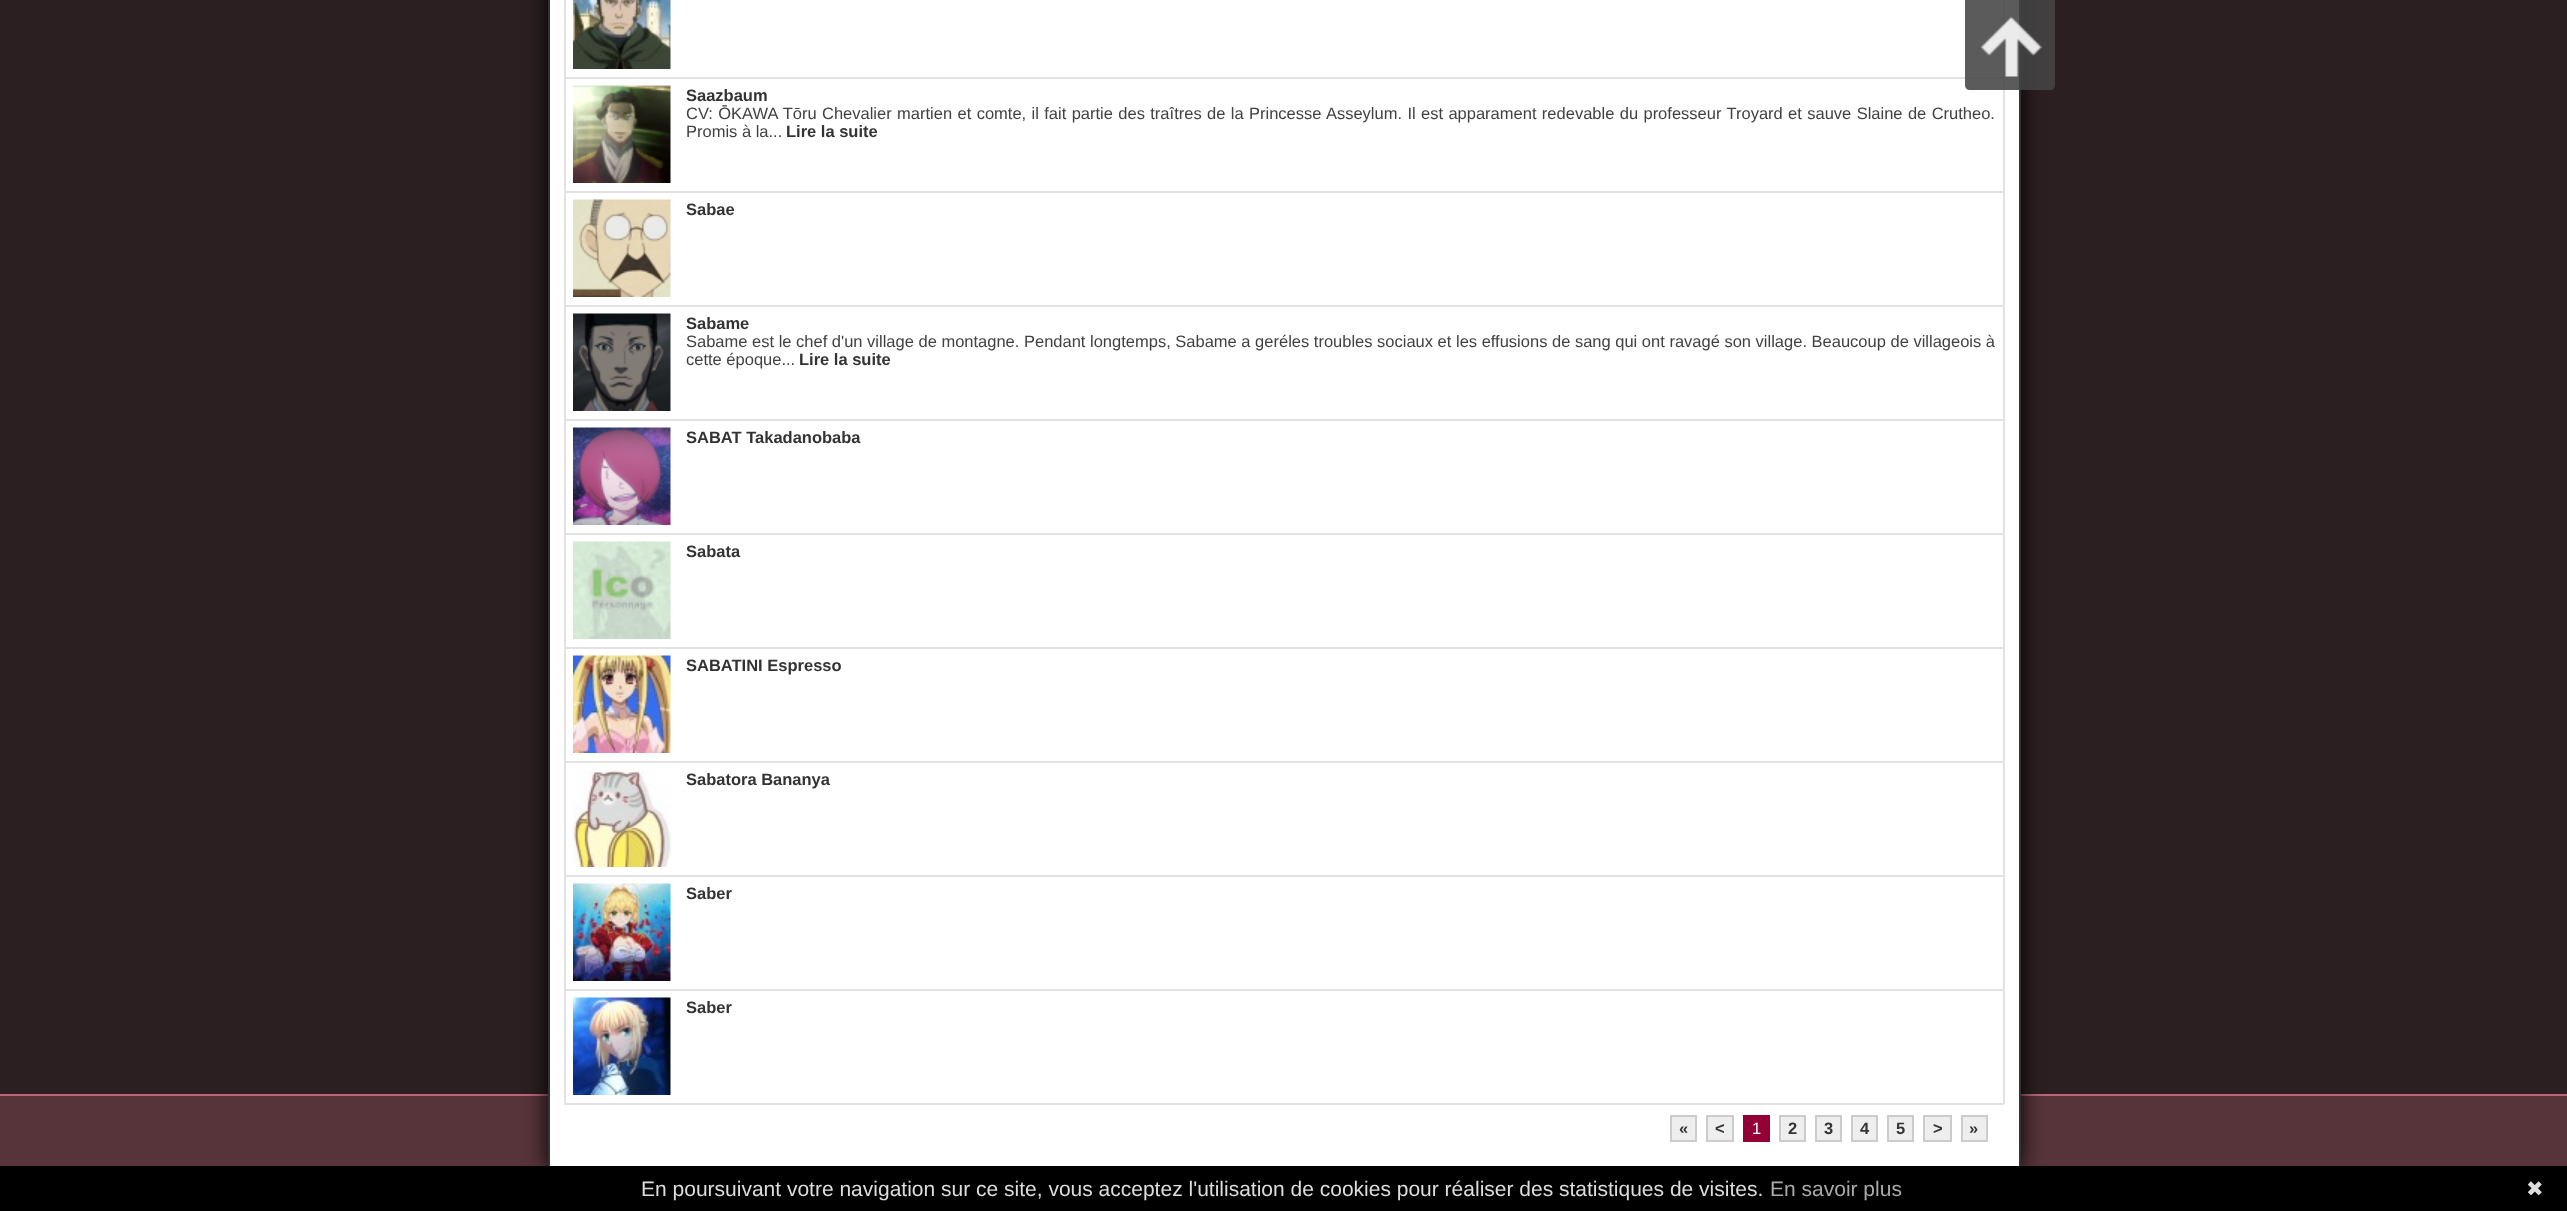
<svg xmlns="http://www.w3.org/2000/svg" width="2567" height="1211">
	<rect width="100%" height="100%" fill="#2C1F22" />
	<rect x="0" y="1096" width="2567" height="70" fill="#57343A" />
	<rect x="0" y="1094" width="2567" height="2" fill="#BC647A" />
	<rect x="548" y="-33" width="1473" height="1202" fill="#000000" filter="blur(11px)" />
	<rect x="550" y="0" width="1469" height="1166" fill="#FFFFFF" />
	<rect x="549" y="-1" width="1471" height="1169" fill="none" stroke="#333333" stroke-width="2" />
	<rect x="564" y="77" width="1440" height="2" fill="#E2E2E2" />
	<rect x="564" y="191" width="1440" height="2" fill="#E2E2E2" />
	<rect x="564" y="305" width="1440" height="2" fill="#E2E2E2" />
	<rect x="564" y="419" width="1440" height="2" fill="#E2E2E2" />
	<rect x="564" y="533" width="1440" height="2" fill="#E2E2E2" />
	<rect x="564" y="647" width="1440" height="2" fill="#E2E2E2" />
	<rect x="564" y="761" width="1440" height="2" fill="#E2E2E2" />
	<rect x="564" y="875" width="1440" height="2" fill="#E2E2E2" />
	<rect x="564" y="989" width="1440" height="2" fill="#E2E2E2" />
	<rect x="2003" y="989" width="2" height="115" fill="#E2E2E2" />
	<rect x="2003" y="875" width="2" height="115" fill="#E2E2E2" />
	<rect x="2003" y="761" width="2" height="115" fill="#E2E2E2" />
	<rect x="2003" y="647" width="2" height="115" fill="#E2E2E2" />
	<rect x="2003" y="533" width="2" height="115" fill="#E2E2E2" />
	<rect x="2003" y="419" width="2" height="115" fill="#E2E2E2" />
	<rect x="2003" y="305" width="2" height="115" fill="#E2E2E2" />
	<rect x="2003" y="191" width="2" height="115" fill="#E2E2E2" />
	<rect x="2003" y="0" width="2" height="192" fill="#E2E2E2" />
	<path d="M1965 0H2055V85C2055 88 2053 90 2050 90H1970C1967 90 1965 88 1965 85Z" fill="#444444" fill-opacity="0.88" />
	<image x="1980" y="16" width="63" height="61" href="assets/img1.png" />
	<image x="573" y="0" width="98" height="69" href="assets/img2.png" />
	<rect x="564" y="1103" width="1440" height="2" fill="#E2E2E2" />
	<rect x="564" y="989" width="2" height="115" fill="#E2E2E2" />
	<rect x="564" y="875" width="2" height="115" fill="#E2E2E2" />
	<rect x="564" y="761" width="2" height="115" fill="#E2E2E2" />
	<rect x="564" y="647" width="2" height="115" fill="#E2E2E2" />
	<rect x="564" y="533" width="2" height="115" fill="#E2E2E2" />
	<rect x="564" y="419" width="2" height="115" fill="#E2E2E2" />
	<rect x="564" y="305" width="2" height="115" fill="#E2E2E2" />
	<rect x="564" y="191" width="2" height="115" fill="#E2E2E2" />
	<rect x="564" y="0" width="2" height="192" fill="#E2E2E2" />
	<image x="573" y="85" width="98" height="98" href="assets/img3.png" />
	<text x="686" y="101" font-family="Liberation Sans" font-size="16.5" font-weight="700" fill="#333333">Saazbaum</text>
	<g font-family="Liberation Sans" font-size="16.5" fill="#414141">
		<text x="686" y="119" word-spacing="0.8">CV: ŌKAWA Tōru</text>
		<text x="822" y="119" word-spacing="0.8">Chevalier martien et comte, il fait partie des traîtres de la Princesse Asseylum. Il est apparament redevable du professeur Troyard et sauve Slaine de Crutheo.</text>
		<text x="686" y="137">Promis à la...</text>
	</g>
	<text x="786" y="137" font-family="Liberation Sans" font-size="16.5" font-weight="700" fill="#333333">Lire la suite</text>
	<image x="573" y="199" width="98" height="98" href="assets/img4.png" />
	<text x="686" y="215" font-family="Liberation Sans" font-size="16.5" font-weight="700" fill="#333333">Sabae</text>
	<image x="573" y="313" width="98" height="98" href="assets/img5.png" />
	<text x="686" y="329" font-family="Liberation Sans" font-size="16.5" font-weight="700" fill="#333333">Sabame</text>
	<g font-family="Liberation Sans" font-size="16.5" fill="#414141">
		<text x="686" y="347">Sabame est le chef d'un village de montagne. Pendant longtemps, Sabame a geréles troubles sociaux et les effusions de sang qui ont ravagé son village. Beaucoup de villageois à</text>
		<text x="686" y="365">cette époque...</text>
	</g>
	<text x="799" y="365" font-family="Liberation Sans" font-size="16.5" font-weight="700" fill="#333333">Lire la suite</text>
	<image x="573" y="427" width="98" height="98" href="assets/img6.png" />
	<text x="686" y="443" font-family="Liberation Sans" font-size="16.5" font-weight="700" fill="#333333">SABAT Takadanobaba</text>
	<image x="573" y="541" width="98" height="98" href="assets/img7.png" />
	<text x="686" y="557" font-family="Liberation Sans" font-size="16.5" font-weight="700" fill="#333333">Sabata</text>
	<image x="573" y="655" width="98" height="98" href="assets/img8.png" />
	<text x="686" y="671" font-family="Liberation Sans" font-size="16.5" font-weight="700" fill="#333333">SABATINI Espresso</text>
	<image x="573" y="769" width="98" height="98" href="assets/img9.png" />
	<text x="686" y="785" font-family="Liberation Sans" font-size="16.5" font-weight="700" fill="#333333">Sabatora Bananya</text>
	<image x="573" y="883" width="98" height="98" href="assets/img10.png" />
	<text x="686" y="899" font-family="Liberation Sans" font-size="16.5" font-weight="700" fill="#333333">Saber</text>
	<image x="573" y="997" width="98" height="98" href="assets/img11.png" />
	<text x="686" y="1013" font-family="Liberation Sans" font-size="16.5" font-weight="700" fill="#333333">Saber</text>
	<rect x="1671" y="1116" width="25" height="25" fill="#EEEEEE" stroke="#CCCCCC" stroke-width="2" />
	<text x="1679" y="1134" font-family="Liberation Sans" font-size="16.5" font-weight="700" fill="#333333">«</text>
	<rect x="1707" y="1116" width="26" height="25" fill="#EEEEEE" stroke="#CCCCCC" stroke-width="2" />
	<text x="1715" y="1134" font-family="Liberation Sans" font-size="16.5" font-weight="700" fill="#333333">&lt;</text>
	<rect x="1743" y="1115" width="27" height="27" fill="#940036" />
	<text x="1752" y="1134" font-family="Liberation Sans" font-size="16.5" fill="#FFFFFF">1</text>
	<rect x="1780" y="1116" width="25" height="25" fill="#EEEEEE" stroke="#CCCCCC" stroke-width="2" />
	<text x="1788" y="1134" font-family="Liberation Sans" font-size="16.5" font-weight="700" fill="#333333">2</text>
	<rect x="1816" y="1116" width="25" height="25" fill="#EEEEEE" stroke="#CCCCCC" stroke-width="2" />
	<text x="1824" y="1134" font-family="Liberation Sans" font-size="16.5" font-weight="700" fill="#333333">3</text>
	<rect x="1852" y="1116" width="25" height="25" fill="#EEEEEE" stroke="#CCCCCC" stroke-width="2" />
	<text x="1860" y="1134" font-family="Liberation Sans" font-size="16.5" font-weight="700" fill="#333333">4</text>
	<rect x="1888" y="1116" width="25" height="25" fill="#EEEEEE" stroke="#CCCCCC" stroke-width="2" />
	<text x="1896" y="1134" font-family="Liberation Sans" font-size="16.5" font-weight="700" fill="#333333">5</text>
	<rect x="1924" y="1116" width="27" height="25" fill="#EEEEEE" stroke="#CCCCCC" stroke-width="2" />
	<text x="1933" y="1134" font-family="Liberation Sans" font-size="16.5" font-weight="700" fill="#333333">&gt;</text>
	<rect x="1962" y="1116" width="25" height="25" fill="#EEEEEE" stroke="#CCCCCC" stroke-width="2" />
	<text x="1969" y="1134" font-family="Liberation Sans" font-size="16.5" font-weight="700" fill="#333333">»</text>
	<rect x="0" y="1166" width="2567" height="45" fill="#000000" />
	<text x="641" y="1196" font-family="Liberation Sans" font-size="21" fill="#DDDDDD">En poursuivant votre navigation sur ce site, vous acceptez l'utilisation de cookies pour réaliser des statistiques de visites.</text>
	<text x="1770" y="1196" font-family="Liberation Sans" font-size="21" fill="#AAAAAA">En savoir plus</text>
	<text x="2526" y="1196" font-family="DejaVu Sans" font-size="21" fill="#DDDDDD">✖</text>
</svg>
